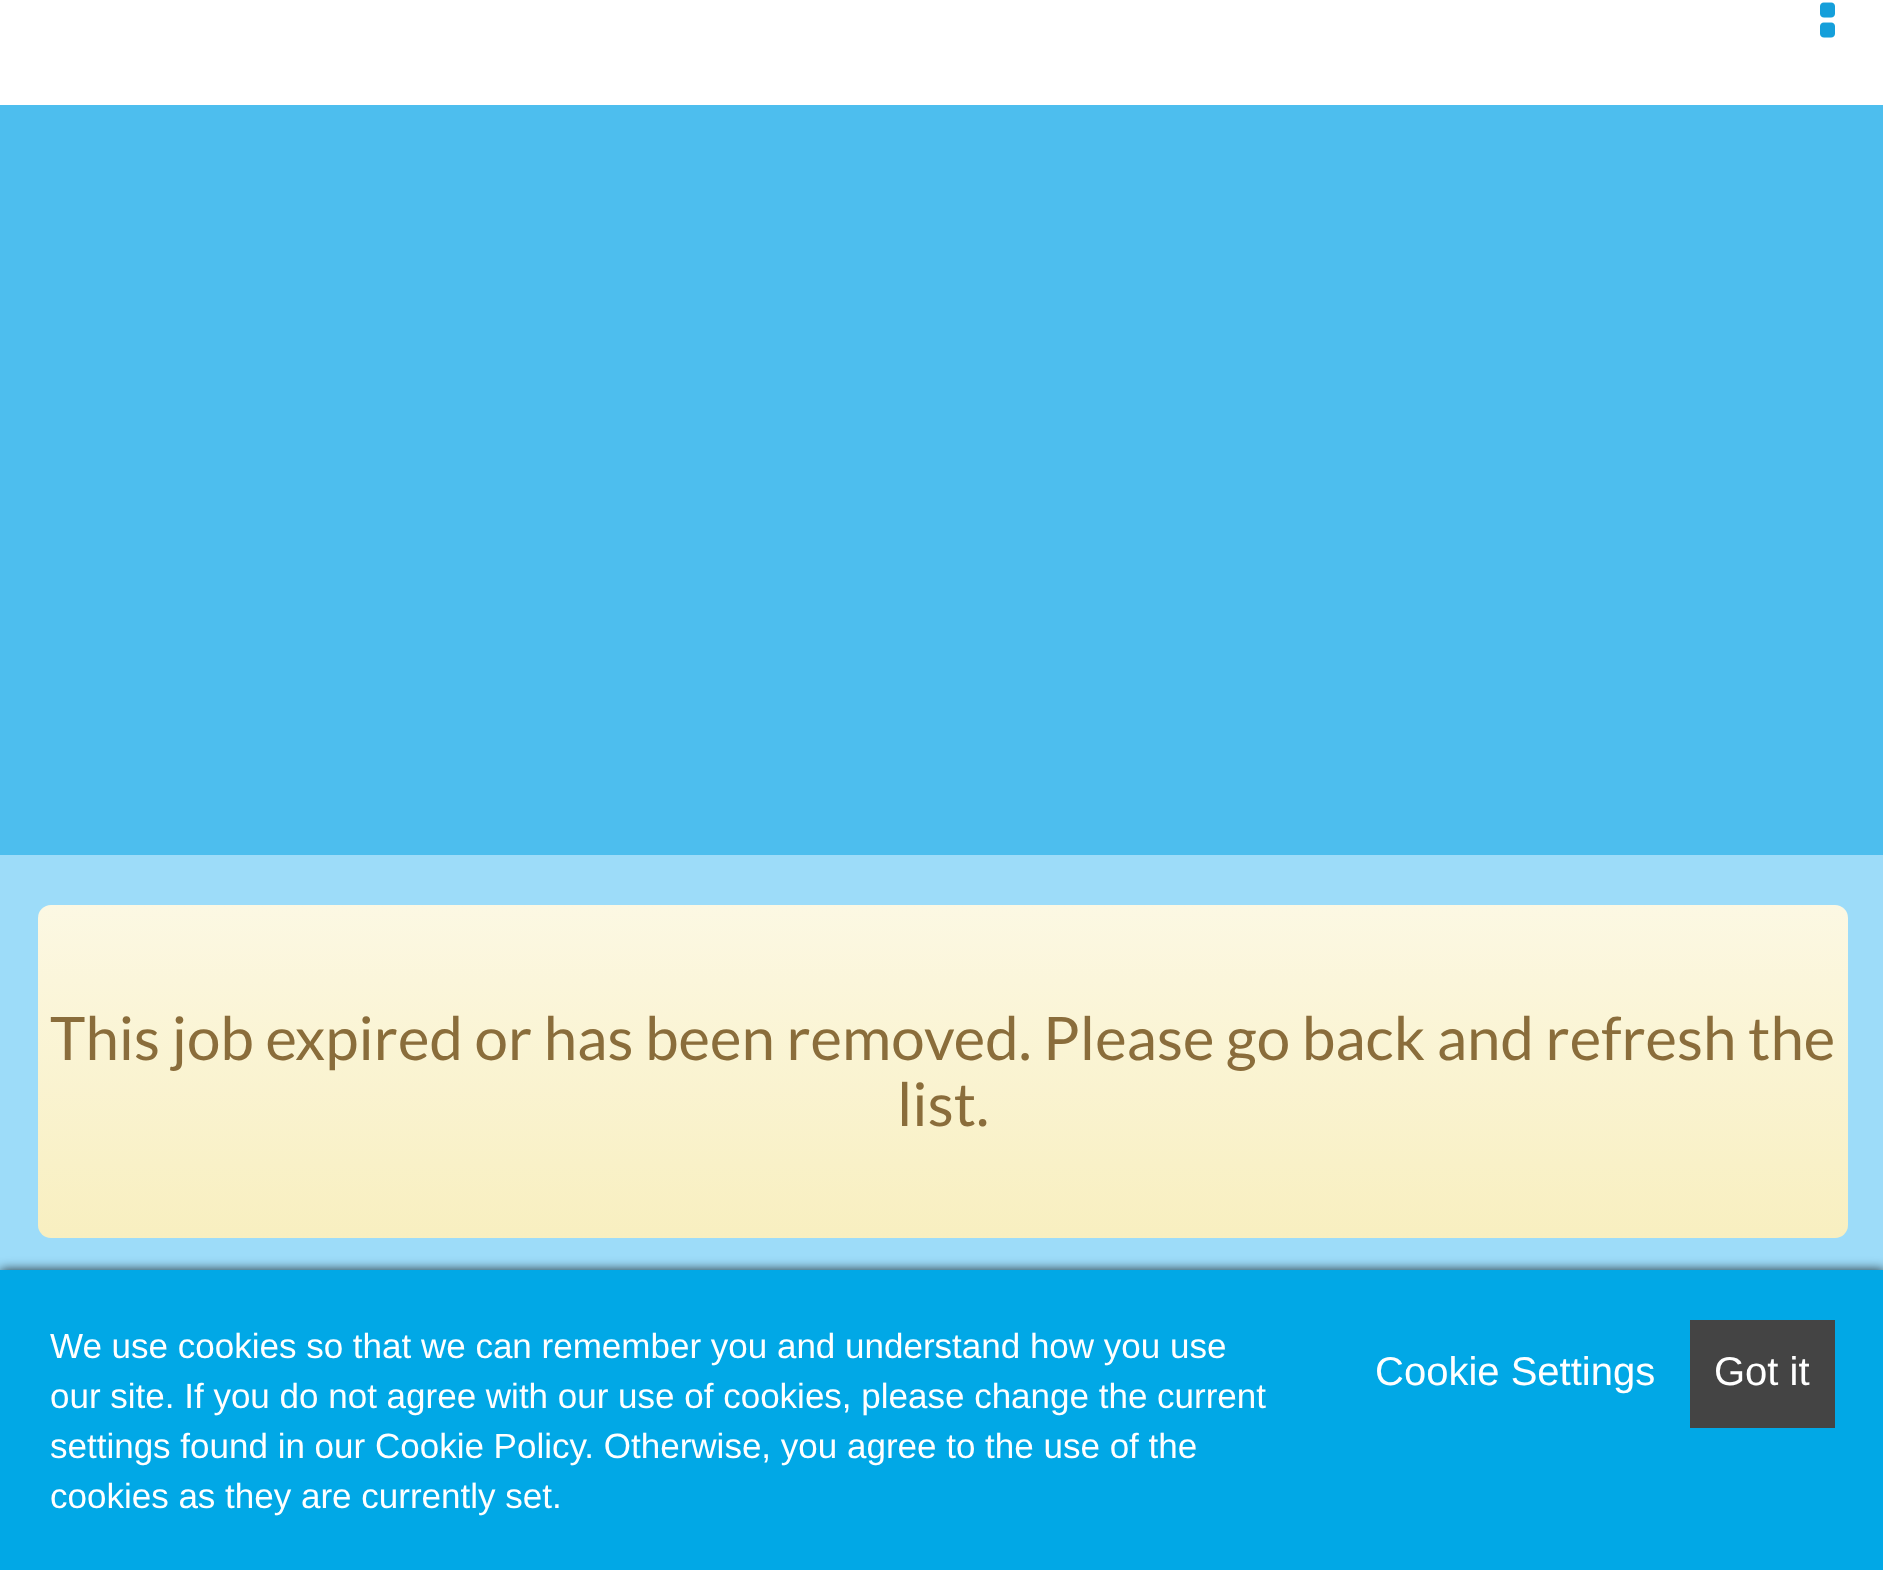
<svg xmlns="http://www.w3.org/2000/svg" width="1883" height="1570">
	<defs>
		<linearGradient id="g1" gradientUnits="userSpaceOnUse" x1="943" y1="905" x2="943" y2="1238"><stop offset="0" stop-color="#FCF8E3" /><stop offset="1" stop-color="#F8EFC0" /></linearGradient>
	</defs>
	<rect width="100%" height="100%" fill="#FFFFFF" />
	<image x="1820" y="2" width="15" height="36" href="assets/img1.png" />
	<rect x="0" y="105" width="1883" height="750" fill="#4DBEEE" />
	<rect x="0" y="855" width="1883" height="415" fill="#9DDCF9" />
	<rect x="38" y="905" width="1810" height="333" rx="13" fill="url(#g1)" />
	<g font-family="Lato" font-size="60" fill="#8A6D3B">
		<text x="50" y="1060">This job expired or has been removed. Please go back and refresh the</text>
		<text x="897" y="1126">list.</text>
	</g>
	<rect x="0" y="1270" width="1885" height="300" fill="#000000" fill-opacity="0.8" filter="blur(6px)" />
	<rect x="0" y="1270" width="1883" height="300" fill="#01A8E6" />
	<g font-family="Liberation Sans" font-size="35" fill="#FFFFFF">
		<text x="50" y="1358">We use cookies so that we can remember you and understand how you use</text>
		<text x="50" y="1408">our site. If you do not agree with our use of cookies, please change the current</text>
		<text x="50" y="1458">settings found in our Cookie Policy. Otherwise, you agree to the use of the</text>
		<text x="50" y="1508">cookies as they are currently set.</text>
	</g>
	<text x="1375" y="1385" font-family="Liberation Sans" font-size="40" fill="#FFFFFF">Cookie Settings</text>
	<rect x="1690" y="1320" width="145" height="108" fill="#444444" />
	<text x="1714" y="1385" font-family="Liberation Sans" font-size="40" fill="#FFFFFF">Got it</text>
</svg>
